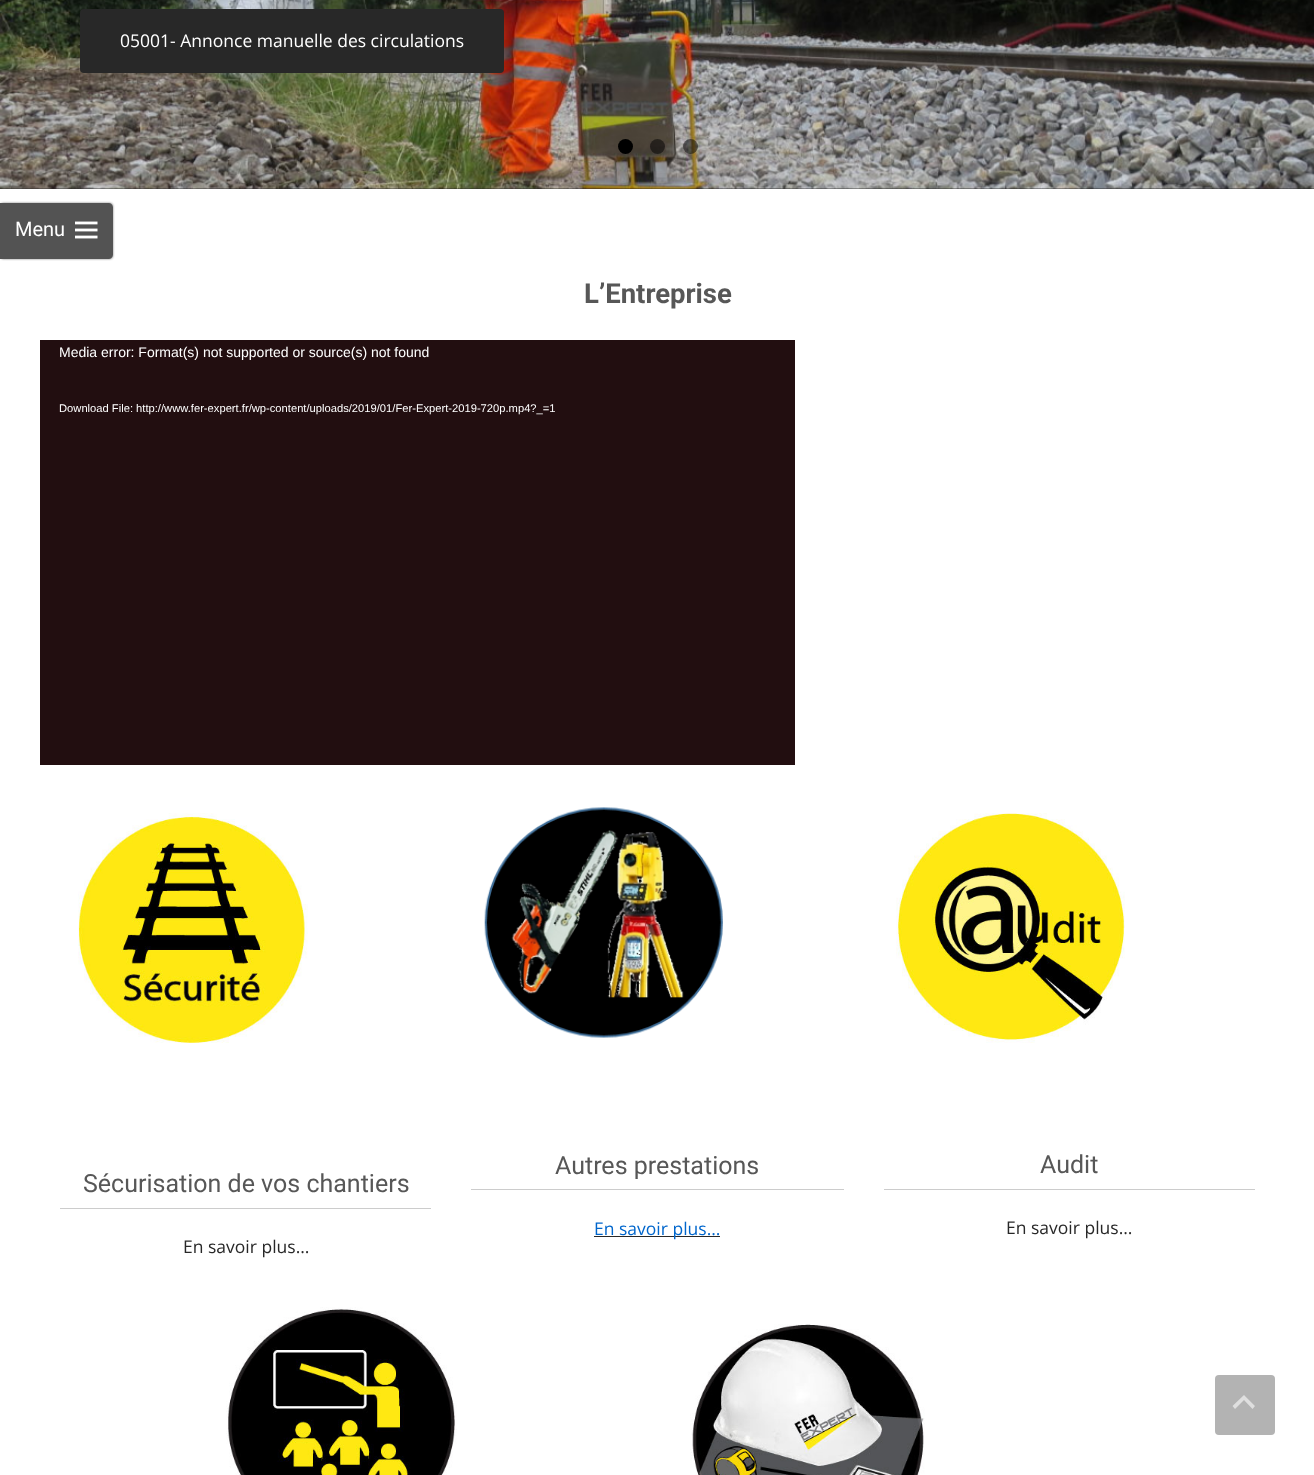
<svg xmlns="http://www.w3.org/2000/svg" width="1314" height="1475">
	<defs>
		<clipPath id="clip1"><path d="M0 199H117V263H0ZM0 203H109C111 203 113 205 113 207V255C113 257 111 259 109 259H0Z" clip-rule="evenodd" /></clipPath>
	</defs>
	<rect width="100%" height="100%" fill="#FFFFFF" />
	<rect x="0" y="188" width="1314" height="1" fill="#282828" />
	<image x="0" y="0" width="1314" height="189" href="assets/img1.png" />
	<rect x="80" y="9" width="424" height="64" rx="4" fill="#282828" />
	<text x="120" y="47" font-family="Open Sans" font-size="17.5" fill="#FFFFFF">05001- Annonce manuelle des circulations</text>
	<circle cx="625.5" cy="146.5" r="7.5" fill="#000000" />
	<circle cx="657.5" cy="146.5" r="7.5" fill="#000000" fill-opacity="0.5" />
	<circle cx="690.5" cy="146.5" r="7.5" fill="#000000" fill-opacity="0.5" />
	<g clip-path="url(#clip1)">
		<rect x="0" y="203" width="113" height="56" rx="4" fill="#323232" fill-opacity="0.64" filter="blur(1px)" />
	</g>
	<path d="M0 203H109C111 203 113 205 113 207V255C113 257 111 259 109 259H0Z" fill="#282828" fill-opacity="0.8" />
	<text x="15" y="236" font-family="Roboto" font-size="20" fill="#FFFFFF">Menu</text>
	<image x="75" y="221" width="23" height="18" href="assets/img2.png" />
	<text x="584" y="303" font-family="Roboto" font-size="27.5" font-weight="700" fill="#575757">L’Entreprise</text>
	<rect x="40" y="340" width="755" height="425" fill="#220E10" />
	<text x="59" y="357" font-family="Liberation Sans" font-size="14" fill="#FFFFFF">Media error: Format(s) not supported or source(s) not found</text>
	<text x="59" y="412" font-family="Liberation Sans" font-size="11.2" fill="#FFFFFF">Download File: http://www.fer-expert.fr/wp-content/uploads/2019/01/Fer-Expert-2019-720p.mp4?_=1</text>
	<image x="78" y="813" width="230" height="230" href="assets/img3.png" />
	<rect x="60" y="1208" width="371" height="1" fill="#CCCCCC" />
	<text x="83" y="1192" font-family="Roboto" font-size="25" fill="#575757">Sécurisation de vos chantiers</text>
	<text x="183" y="1253" font-family="Open Sans" font-size="17.5" fill="#282828">En savoir plus…</text>
	<image x="484" y="807" width="239" height="231" href="assets/img4.png" />
	<rect x="471" y="1189" width="373" height="1" fill="#CCCCCC" />
	<text x="555" y="1174" font-family="Roboto" font-size="25" fill="#575757">Autres prestations</text>
	<rect x="594" y="1236" width="126" height="1" fill="#282828" />
	<text x="594" y="1235" font-family="Open Sans" font-size="17.5" fill="#0066CC">En savoir plus…</text>
	<image x="896" y="813" width="229" height="230" href="assets/img5.png" />
	<rect x="884" y="1189" width="371" height="1" fill="#CCCCCC" />
	<text x="1040" y="1173" font-family="Roboto" font-size="25" fill="#575757">Audit</text>
	<text x="1006" y="1234" font-family="Open Sans" font-size="17.5" fill="#282828">En savoir plus…</text>
	<image x="226" y="1307" width="231" height="168" href="assets/img6.png" />
	<image x="690" y="1324" width="235" height="151" href="assets/img7.png" />
	<rect x="1215" y="1375" width="60" height="60" rx="4" fill="#B3B3B3" />
	<path d="M1232.5 1406L1244 1395L1255 1406L1252.5 1409L1244 1400L1235 1409Z" fill="#DFDFDF" />
</svg>
